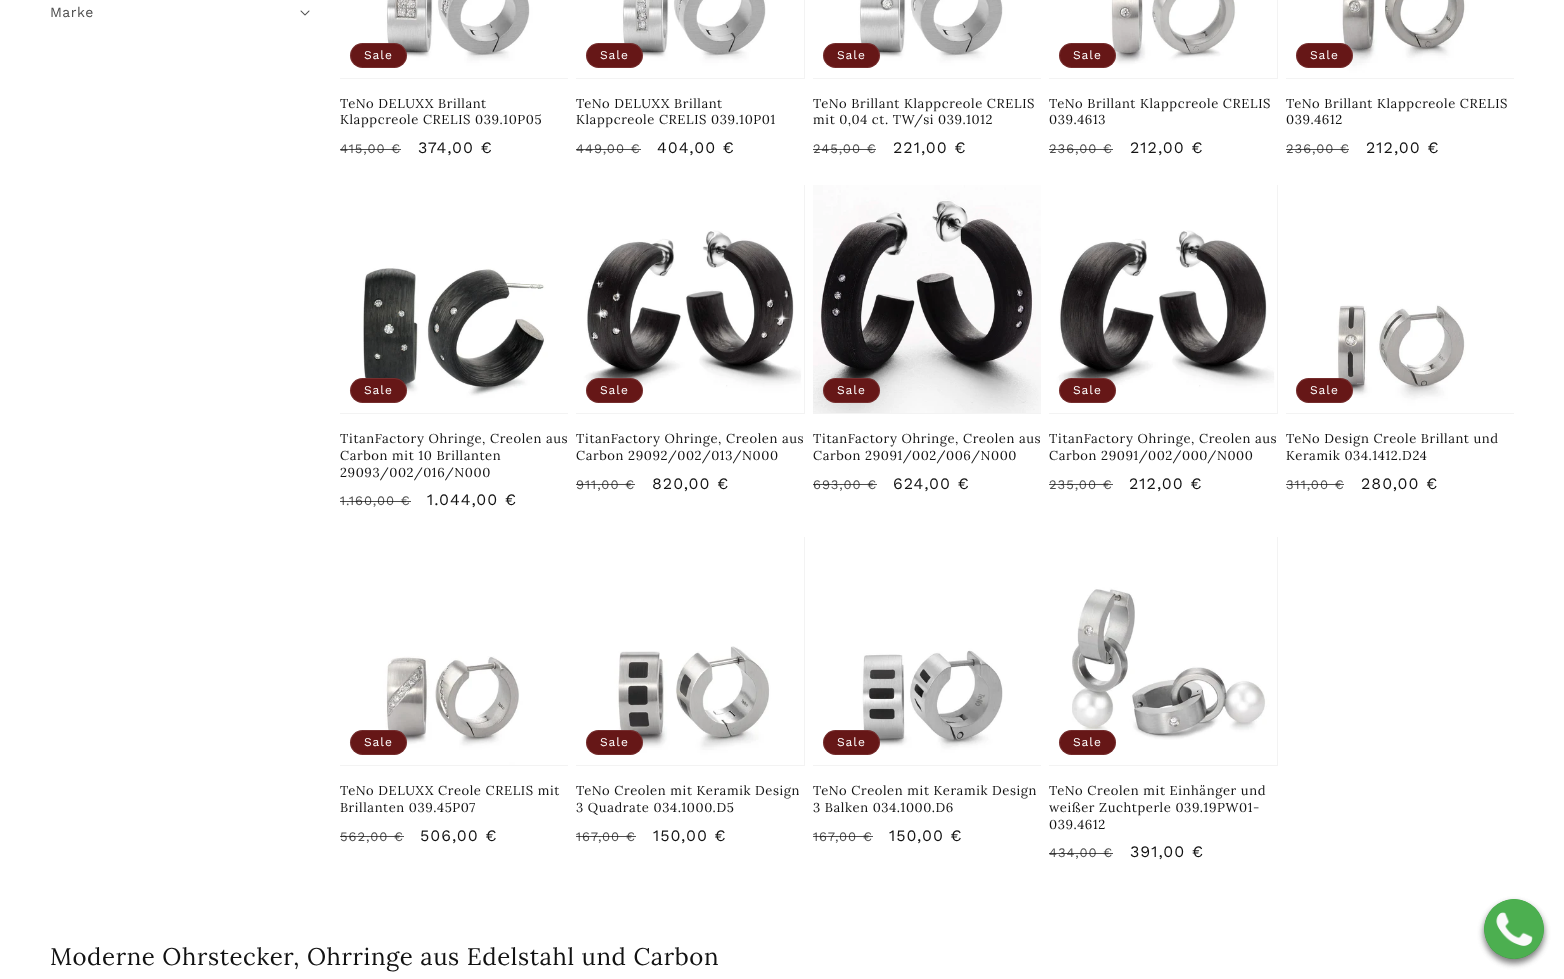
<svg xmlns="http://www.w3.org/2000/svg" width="1564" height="979">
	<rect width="100%" height="100%" fill="#FFFFFF" />
	<text x="50" y="17" font-family="Work Sans" font-size="14" letter-spacing="0.5" fill="#4D4D4D">Marke</text>
	<image x="300" y="10" width="10" height="6" href="assets/img1.png" />
	<rect x="340" y="78" width="228" height="1" fill="#F3F3F3" />
	<image x="340" y="0" width="228" height="78" href="assets/img2.png" />
	<rect x="350" y="43" width="57" height="25" rx="12.5" fill="#661717" />
	<rect x="350.5" y="43.5" width="56" height="24" rx="12" fill="none" stroke="#FFFFFF" stroke-opacity="0.1" />
	<text x="364" y="59" font-family="Work Sans" font-size="12" letter-spacing="1" fill="#FFFFFF">Sale</text>
	<g font-family="Lora" font-size="13" letter-spacing="0.6" fill="#121212">
		<text x="340" y="108">TeNo DELUXX Brillant</text>
		<text x="340" y="124">Klappcreole CRELIS 039.10P05</text>
	</g>
	<text x="340" y="153" font-family="Work Sans" font-size="13" letter-spacing="1" fill="#4D4D4D">415,00 €</text>
	<rect x="340" y="149" width="61" height="1" fill="#121212" fill-opacity="0.75" />
	<text x="418" y="153" font-family="Work Sans" font-size="16" letter-spacing="1" fill="#121212">374,00 €</text>
	<rect x="576" y="0" width="229" height="79" fill="#F3F3F3" />
	<image x="576" y="0" width="228" height="78" href="assets/img3.png" />
	<rect x="586" y="43" width="57" height="25" rx="12.5" fill="#661717" />
	<rect x="586.5" y="43.5" width="56" height="24" rx="12" fill="none" stroke="#FFFFFF" stroke-opacity="0.1" />
	<text x="600" y="59" font-family="Work Sans" font-size="12" letter-spacing="1" fill="#FFFFFF">Sale</text>
	<g font-family="Lora" font-size="13" letter-spacing="0.6" fill="#121212">
		<text x="576" y="108">TeNo DELUXX Brillant</text>
		<text x="576" y="124">Klappcreole CRELIS 039.10P01</text>
	</g>
	<text x="576" y="153" font-family="Work Sans" font-size="13" letter-spacing="1" fill="#4D4D4D">449,00 €</text>
	<rect x="576" y="149" width="65" height="1" fill="#121212" fill-opacity="0.75" />
	<text x="657" y="153" font-family="Work Sans" font-size="16" letter-spacing="1" fill="#121212">404,00 €</text>
	<rect x="813" y="78" width="228" height="1" fill="#F3F3F3" />
	<image x="813" y="0" width="228" height="78" href="assets/img4.png" />
	<rect x="823" y="43" width="57" height="25" rx="12.5" fill="#661717" />
	<rect x="823.5" y="43.5" width="56" height="24" rx="12" fill="none" stroke="#FFFFFF" stroke-opacity="0.1" />
	<text x="837" y="59" font-family="Work Sans" font-size="12" letter-spacing="1" fill="#FFFFFF">Sale</text>
	<g font-family="Lora" font-size="13" letter-spacing="0.6" fill="#121212">
		<text x="813" y="108">TeNo Brillant Klappcreole CRELIS</text>
		<text x="813" y="124">mit 0,04 ct. TW/si 039.1012</text>
	</g>
	<text x="813" y="153" font-family="Work Sans" font-size="13" letter-spacing="1" fill="#4D4D4D">245,00 €</text>
	<rect x="813" y="149" width="63" height="1" fill="#121212" fill-opacity="0.75" />
	<text x="893" y="153" font-family="Work Sans" font-size="16" letter-spacing="1" fill="#121212">221,00 €</text>
	<rect x="1049" y="0" width="229" height="79" fill="#F3F3F3" />
	<image x="1049" y="0" width="228" height="78" href="assets/img5.png" />
	<rect x="1059" y="43" width="57" height="25" rx="12.5" fill="#661717" />
	<rect x="1059.5" y="43.5" width="56" height="24" rx="12" fill="none" stroke="#FFFFFF" stroke-opacity="0.1" />
	<text x="1073" y="59" font-family="Work Sans" font-size="12" letter-spacing="1" fill="#FFFFFF">Sale</text>
	<g font-family="Lora" font-size="13" letter-spacing="0.6" fill="#121212">
		<text x="1049" y="108">TeNo Brillant Klappcreole CRELIS</text>
		<text x="1049" y="124">039.4613</text>
	</g>
	<text x="1049" y="153" font-family="Work Sans" font-size="13" letter-spacing="1" fill="#4D4D4D">236,00 €</text>
	<rect x="1049" y="149" width="64" height="1" fill="#121212" fill-opacity="0.75" />
	<text x="1130" y="153" font-family="Work Sans" font-size="16" letter-spacing="1" fill="#121212">212,00 €</text>
	<rect x="1286" y="78" width="228" height="1" fill="#F3F3F3" />
	<image x="1286" y="0" width="228" height="78" href="assets/img6.png" />
	<rect x="1296" y="43" width="57" height="25" rx="12.5" fill="#661717" />
	<rect x="1296.5" y="43.5" width="56" height="24" rx="12" fill="none" stroke="#FFFFFF" stroke-opacity="0.1" />
	<text x="1310" y="59" font-family="Work Sans" font-size="12" letter-spacing="1" fill="#FFFFFF">Sale</text>
	<g font-family="Lora" font-size="13" letter-spacing="0.6" fill="#121212">
		<text x="1286" y="108">TeNo Brillant Klappcreole CRELIS</text>
		<text x="1286" y="124">039.4612</text>
	</g>
	<text x="1286" y="153" font-family="Work Sans" font-size="13" letter-spacing="1" fill="#4D4D4D">236,00 €</text>
	<rect x="1286" y="149" width="63" height="1" fill="#121212" fill-opacity="0.75" />
	<text x="1366" y="153" font-family="Work Sans" font-size="16" letter-spacing="1" fill="#121212">212,00 €</text>
	<rect x="340" y="413" width="228" height="1" fill="#F3F3F3" />
	<image x="340" y="185" width="228" height="228" href="assets/img7.png" />
	<rect x="350" y="378" width="57" height="25" rx="12.5" fill="#661717" />
	<rect x="350.5" y="378.5" width="56" height="24" rx="12" fill="none" stroke="#FFFFFF" stroke-opacity="0.1" />
	<text x="364" y="394" font-family="Work Sans" font-size="12" letter-spacing="1" fill="#FFFFFF">Sale</text>
	<g font-family="Lora" font-size="13" letter-spacing="0.6" fill="#121212">
		<text x="340" y="443">TitanFactory Ohringe, Creolen aus</text>
		<text x="340" y="460">Carbon mit 10 Brillanten</text>
		<text x="340" y="477">29093/002/016/N000</text>
	</g>
	<text x="340" y="505" font-family="Work Sans" font-size="13" letter-spacing="1" fill="#4D4D4D">1.160,00 €</text>
	<rect x="340" y="501" width="71" height="1" fill="#121212" fill-opacity="0.75" />
	<text x="427" y="505" font-family="Work Sans" font-size="16" letter-spacing="1" fill="#121212">1.044,00 €</text>
	<rect x="576" y="185" width="229" height="229" fill="#F3F3F3" />
	<image x="576" y="185" width="228" height="228" href="assets/img8.png" />
	<rect x="586" y="378" width="57" height="25" rx="12.5" fill="#661717" />
	<rect x="586.5" y="378.5" width="56" height="24" rx="12" fill="none" stroke="#FFFFFF" stroke-opacity="0.1" />
	<text x="600" y="394" font-family="Work Sans" font-size="12" letter-spacing="1" fill="#FFFFFF">Sale</text>
	<g font-family="Lora" font-size="13" letter-spacing="0.6" fill="#121212">
		<text x="576" y="443">TitanFactory Ohringe, Creolen aus</text>
		<text x="576" y="460">Carbon 29092/002/013/N000</text>
	</g>
	<text x="576" y="489" font-family="Work Sans" font-size="13" letter-spacing="1" fill="#4D4D4D">911,00 €</text>
	<rect x="576" y="484" width="59" height="1" fill="#121212" fill-opacity="0.75" />
	<text x="652" y="489" font-family="Work Sans" font-size="16" letter-spacing="1" fill="#121212">820,00 €</text>
	<rect x="813" y="413" width="228" height="1" fill="#F3F3F3" />
	<image x="813" y="185" width="228" height="228" href="assets/img9.png" />
	<rect x="823" y="378" width="57" height="25" rx="12.5" fill="#661717" />
	<rect x="823.5" y="378.5" width="56" height="24" rx="12" fill="none" stroke="#FFFFFF" stroke-opacity="0.1" />
	<text x="837" y="394" font-family="Work Sans" font-size="12" letter-spacing="1" fill="#FFFFFF">Sale</text>
	<g font-family="Lora" font-size="13" letter-spacing="0.6" fill="#121212">
		<text x="813" y="443">TitanFactory Ohringe, Creolen aus</text>
		<text x="813" y="460">Carbon 29091/002/006/N000</text>
	</g>
	<text x="813" y="489" font-family="Work Sans" font-size="13" letter-spacing="1" fill="#4D4D4D">693,00 €</text>
	<rect x="813" y="484" width="64" height="1" fill="#121212" fill-opacity="0.75" />
	<text x="893" y="489" font-family="Work Sans" font-size="16" letter-spacing="1" fill="#121212">624,00 €</text>
	<rect x="1049" y="185" width="229" height="229" fill="#F3F3F3" />
	<image x="1049" y="185" width="228" height="228" href="assets/img10.png" />
	<rect x="1059" y="378" width="57" height="25" rx="12.5" fill="#661717" />
	<rect x="1059.5" y="378.5" width="56" height="24" rx="12" fill="none" stroke="#FFFFFF" stroke-opacity="0.1" />
	<text x="1073" y="394" font-family="Work Sans" font-size="12" letter-spacing="1" fill="#FFFFFF">Sale</text>
	<g font-family="Lora" font-size="13" letter-spacing="0.6" fill="#121212">
		<text x="1049" y="443">TitanFactory Ohringe, Creolen aus</text>
		<text x="1049" y="460">Carbon 29091/002/000/N000</text>
	</g>
	<text x="1049" y="489" font-family="Work Sans" font-size="13" letter-spacing="1" fill="#4D4D4D">235,00 €</text>
	<rect x="1049" y="484" width="64" height="1" fill="#121212" fill-opacity="0.75" />
	<text x="1129" y="489" font-family="Work Sans" font-size="16" letter-spacing="1" fill="#121212">212,00 €</text>
	<rect x="1286" y="413" width="228" height="1" fill="#F3F3F3" />
	<image x="1286" y="185" width="228" height="228" href="assets/img11.png" />
	<rect x="1296" y="378" width="57" height="25" rx="12.5" fill="#661717" />
	<rect x="1296.5" y="378.5" width="56" height="24" rx="12" fill="none" stroke="#FFFFFF" stroke-opacity="0.1" />
	<text x="1310" y="394" font-family="Work Sans" font-size="12" letter-spacing="1" fill="#FFFFFF">Sale</text>
	<g font-family="Lora" font-size="13" letter-spacing="0.6" fill="#121212">
		<text x="1286" y="443">TeNo Design Creole Brillant und</text>
		<text x="1286" y="460">Keramik 034.1412.D24</text>
	</g>
	<text x="1286" y="489" font-family="Work Sans" font-size="13" letter-spacing="1" fill="#4D4D4D">311,00 €</text>
	<rect x="1286" y="484" width="58" height="1" fill="#121212" fill-opacity="0.75" />
	<text x="1361" y="489" font-family="Work Sans" font-size="16" letter-spacing="1" fill="#121212">280,00 €</text>
	<rect x="340" y="765" width="228" height="1" fill="#F3F3F3" />
	<image x="340" y="537" width="228" height="228" href="assets/img12.png" />
	<rect x="350" y="730" width="57" height="25" rx="12.5" fill="#661717" />
	<rect x="350.5" y="730.5" width="56" height="24" rx="12" fill="none" stroke="#FFFFFF" stroke-opacity="0.1" />
	<text x="364" y="746" font-family="Work Sans" font-size="12" letter-spacing="1" fill="#FFFFFF">Sale</text>
	<g font-family="Lora" font-size="13" letter-spacing="0.6" fill="#121212">
		<text x="340" y="795">TeNo DELUXX Creole CRELIS mit</text>
		<text x="340" y="812">Brillanten 039.45P07</text>
	</g>
	<text x="340" y="841" font-family="Work Sans" font-size="13" letter-spacing="1" fill="#4D4D4D">562,00 €</text>
	<rect x="340" y="836" width="64" height="1" fill="#121212" fill-opacity="0.75" />
	<text x="420" y="841" font-family="Work Sans" font-size="16" letter-spacing="1" fill="#121212">506,00 €</text>
	<rect x="576" y="537" width="229" height="229" fill="#F3F3F3" />
	<image x="576" y="537" width="228" height="228" href="assets/img13.png" />
	<rect x="586" y="730" width="57" height="25" rx="12.5" fill="#661717" />
	<rect x="586.5" y="730.5" width="56" height="24" rx="12" fill="none" stroke="#FFFFFF" stroke-opacity="0.1" />
	<text x="600" y="746" font-family="Work Sans" font-size="12" letter-spacing="1" fill="#FFFFFF">Sale</text>
	<g font-family="Lora" font-size="13" letter-spacing="0.6" fill="#121212">
		<text x="576" y="795">TeNo Creolen mit Keramik Design</text>
		<text x="576" y="812">3 Quadrate 034.1000.D5</text>
	</g>
	<text x="576" y="841" font-family="Work Sans" font-size="13" letter-spacing="1" fill="#4D4D4D">167,00 €</text>
	<rect x="576" y="836" width="60" height="1" fill="#121212" fill-opacity="0.75" />
	<text x="653" y="841" font-family="Work Sans" font-size="16" letter-spacing="1" fill="#121212">150,00 €</text>
	<rect x="813" y="765" width="228" height="1" fill="#F3F3F3" />
	<image x="813" y="537" width="228" height="228" href="assets/img14.png" />
	<rect x="823" y="730" width="57" height="25" rx="12.5" fill="#661717" />
	<rect x="823.5" y="730.5" width="56" height="24" rx="12" fill="none" stroke="#FFFFFF" stroke-opacity="0.1" />
	<text x="837" y="746" font-family="Work Sans" font-size="12" letter-spacing="1" fill="#FFFFFF">Sale</text>
	<g font-family="Lora" font-size="13" letter-spacing="0.6" fill="#121212">
		<text x="813" y="795">TeNo Creolen mit Keramik Design</text>
		<text x="813" y="812">3 Balken 034.1000.D6</text>
	</g>
	<text x="813" y="841" font-family="Work Sans" font-size="13" letter-spacing="1" fill="#4D4D4D">167,00 €</text>
	<rect x="813" y="836" width="60" height="1" fill="#121212" fill-opacity="0.75" />
	<text x="889" y="841" font-family="Work Sans" font-size="16" letter-spacing="1" fill="#121212">150,00 €</text>
	<rect x="1049" y="537" width="229" height="229" fill="#F3F3F3" />
	<image x="1049" y="537" width="228" height="228" href="assets/img15.png" />
	<rect x="1059" y="730" width="57" height="25" rx="12.5" fill="#661717" />
	<rect x="1059.5" y="730.5" width="56" height="24" rx="12" fill="none" stroke="#FFFFFF" stroke-opacity="0.1" />
	<text x="1073" y="746" font-family="Work Sans" font-size="12" letter-spacing="1" fill="#FFFFFF">Sale</text>
	<g font-family="Lora" font-size="13" letter-spacing="0.6" fill="#121212">
		<text x="1049" y="795">TeNo Creolen mit Einhänger und</text>
		<text x="1049" y="812">weißer Zuchtperle 039.19PW01-</text>
		<text x="1049" y="829">039.4612</text>
	</g>
	<text x="1049" y="857" font-family="Work Sans" font-size="13" letter-spacing="1" fill="#4D4D4D">434,00 €</text>
	<rect x="1049" y="853" width="64" height="1" fill="#121212" fill-opacity="0.75" />
	<text x="1130" y="857" font-family="Work Sans" font-size="16" letter-spacing="1" fill="#121212">391,00 €</text>
	<text x="50" y="965" font-family="Lora" font-size="24" letter-spacing="0.6" fill="#121212">Moderne Ohrstecker, Ohrringe aus Edelstahl und Carbon</text>
	<rect x="1484" y="903" width="60" height="60" rx="30" fill="#000000" fill-opacity="0.3" filter="blur(3px)" />
	<image x="1484" y="899" width="60" height="60" href="assets/img16.png" />
	<rect x="1484" y="903" width="60" height="60" rx="30" fill="#000000" fill-opacity="0.3" filter="blur(3px)" />
	<image x="1484" y="899" width="60" height="60" href="assets/img17.png" />
</svg>
